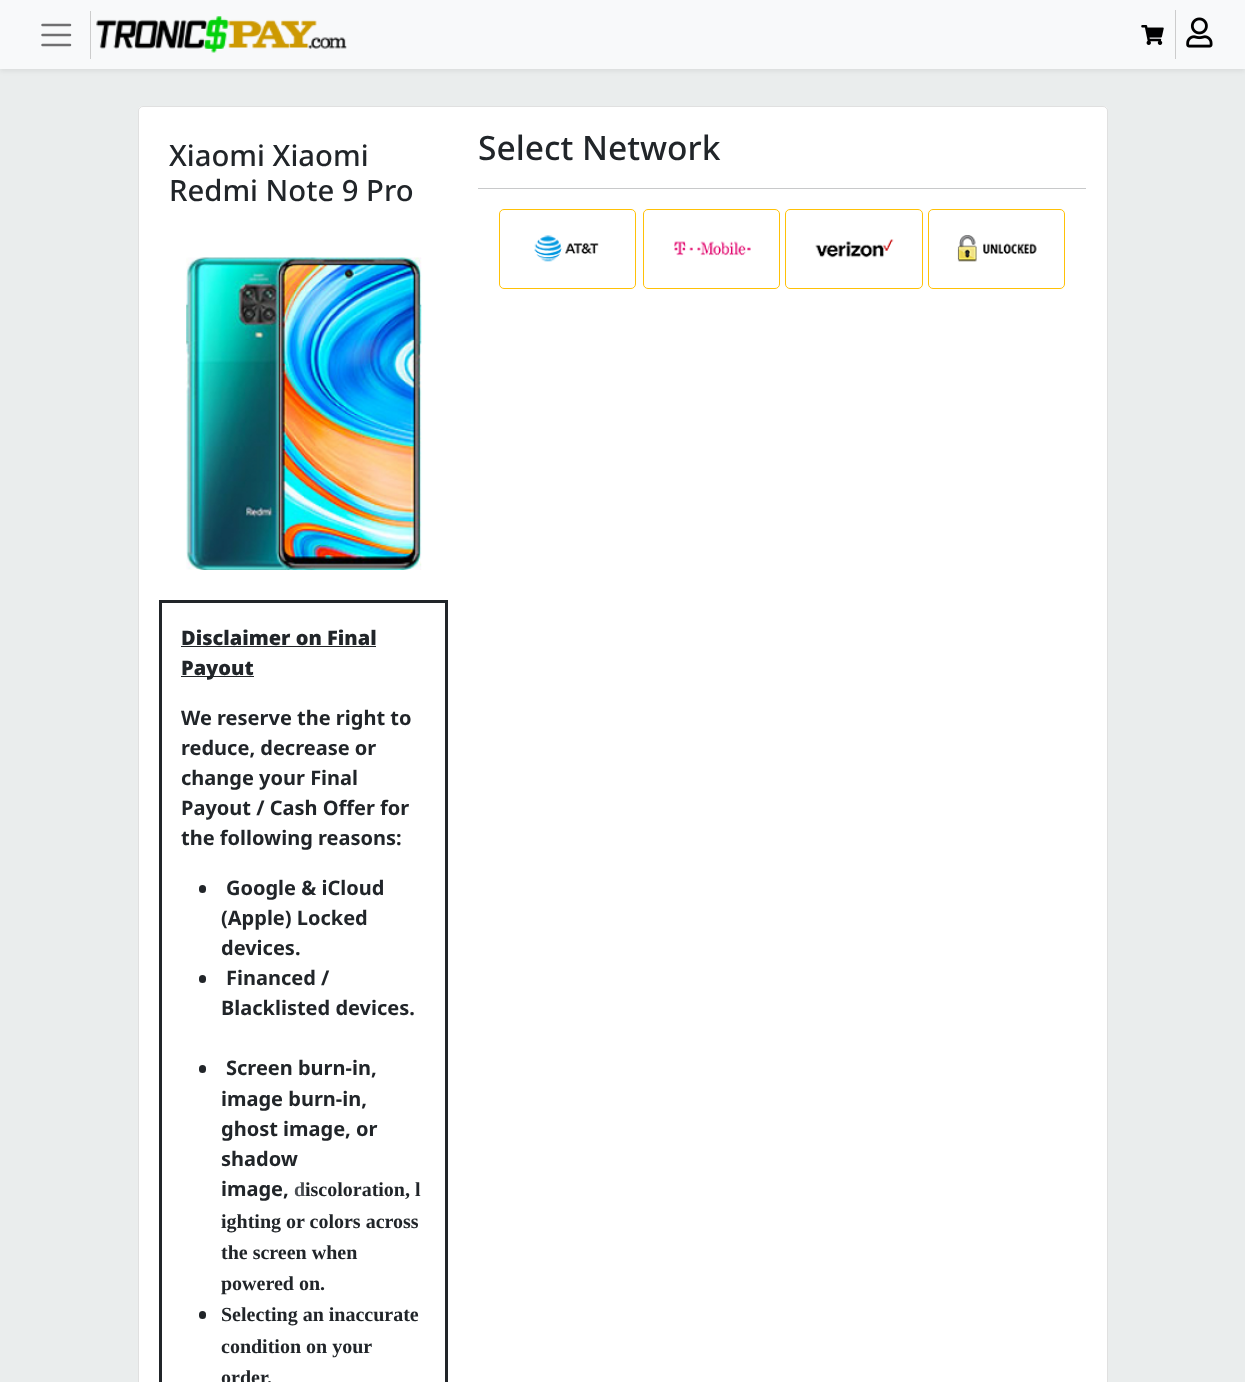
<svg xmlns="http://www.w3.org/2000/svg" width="1245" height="1382">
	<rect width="100%" height="100%" fill="#EAEDED" />
	<rect x="0" y="3" width="1245" height="68" fill="#000000" fill-opacity="0.07" filter="blur(2.5px)" />
	<rect x="0" y="0" width="1245" height="69" fill="#F8F9FA" />
	<rect x="90" y="11" width="1" height="48" fill="#CCCCCC" />
	<path d="M42.5 25H70M42.5 35H70M42.5 45H70" fill="none" stroke="#707071" stroke-width="2.5" stroke-linecap="round" />
	<image x="96" y="16" width="251" height="37" href="assets/img1.png" />
	<rect x="1175" y="10" width="1" height="49" fill="#CCCCCC" />
	<image x="1141" y="25" width="23" height="20" href="assets/img2.png" />
	<image x="1186" y="17" width="27" height="31" href="assets/img3.png" />
	<rect x="138" y="106" width="970" height="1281" rx="5" fill="#FFFFFF" />
	<rect x="138.5" y="106.5" width="969" height="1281" rx="4.5" fill="none" stroke="#000000" stroke-opacity="0.12" />
	<g font-family="Noto Sans" font-size="29.25" font-weight="500" fill="#212529">
		<text x="169" y="166">Xiaomi Xiaomi</text>
		<text x="169" y="201">Redmi Note 9 Pro</text>
	</g>
	<image x="186" y="257" width="236" height="313" href="assets/img4.png" />
	<rect x="160.5" y="601.5" width="286" height="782" fill="none" stroke="#212529" stroke-width="3" />
	<text x="181" y="645" font-family="Noto Sans" font-size="20" font-weight="900" fill="#212529">Disclaimer on Final</text>
	<rect x="181" y="646" width="195" height="1" fill="#212529" />
	<rect x="181" y="676" width="73" height="1" fill="#212529" />
	<text x="181" y="675" font-family="Noto Sans" font-size="20" font-weight="900" fill="#212529">Payout</text>
	<g font-family="Noto Sans" font-size="20" font-weight="700" fill="#212529">
		<text x="181" y="725">We reserve the right to</text>
		<text x="181" y="755">reduce, decrease or</text>
		<text x="181" y="785">change your Final</text>
		<text x="181" y="815">Payout / Cash Offer for</text>
		<text x="181" y="845">the following reasons:</text>
	</g>
	<rect x="199" y="885" width="7" height="8" rx="3.5" fill="#212529" />
	<g font-family="Noto Sans" font-size="20" font-weight="700" fill="#212529">
		<text x="226" y="895">Google &amp; iCloud</text>
		<text x="221" y="925">(Apple) Locked</text>
		<text x="221" y="955">devices.</text>
	</g>
	<rect x="199" y="975" width="7" height="8" rx="3.5" fill="#212529" />
	<g font-family="Noto Sans" font-size="20" font-weight="700" fill="#212529">
		<text x="226" y="985">Financed /</text>
		<text x="221" y="1015">Blacklisted devices.</text>
	</g>
	<rect x="199" y="1065" width="7" height="8" rx="3.5" fill="#212529" />
	<g font-family="Noto Sans" font-size="20" font-weight="700" fill="#212529">
		<text x="226" y="1075">Screen burn-in,</text>
		<text x="221" y="1106">image burn-in,</text>
		<text x="221" y="1136">ghost image, or</text>
		<text x="221" y="1166">shadow</text>
		<text x="221" y="1196">image,</text>
	</g>
	<text x="294" y="1196" font-family="Liberation Serif" font-size="20" font-weight="700" fill="#4D5156">d</text>
	<g font-family="Liberation Serif" font-size="20" font-weight="700" fill="#212529">
		<text x="305" y="1196">iscoloration, l</text>
		<text x="221" y="1228">ighting or colors across</text>
		<text x="221" y="1259">the screen when</text>
		<text x="221" y="1290">powered on.</text>
	</g>
	<rect x="199" y="1311" width="7" height="8" rx="3.5" fill="#212529" />
	<g font-family="Liberation Serif" font-size="20" font-weight="700" fill="#212529">
		<text x="221" y="1321">Selecting an inaccurate</text>
		<text x="221" y="1353">condition on your</text>
		<text x="221" y="1384">order.</text>
	</g>
	<text x="478" y="160" font-family="Noto Sans" font-size="33.5" font-weight="500" fill="#212529">Select Network</text>
	<rect x="478" y="188" width="608" height="1" fill="#C8C9CA" />
	<rect x="499.5" y="209.5" width="136" height="79" rx="4.5" fill="none" stroke="#FFC107" />
	<image x="534" y="235" width="65" height="27" href="assets/img5.png" />
	<rect x="643.5" y="209.5" width="136" height="79" rx="4.5" fill="none" stroke="#FFC107" />
	<image x="674" y="241" width="77" height="15" href="assets/img6.png" />
	<rect x="785.5" y="209.5" width="137" height="79" rx="4.5" fill="none" stroke="#FFC107" />
	<image x="815" y="239" width="79" height="19" href="assets/img7.png" />
	<rect x="928.5" y="209.5" width="136" height="79" rx="4.5" fill="none" stroke="#FFC107" />
	<image x="957" y="235" width="80" height="27" href="assets/img8.png" />
</svg>
